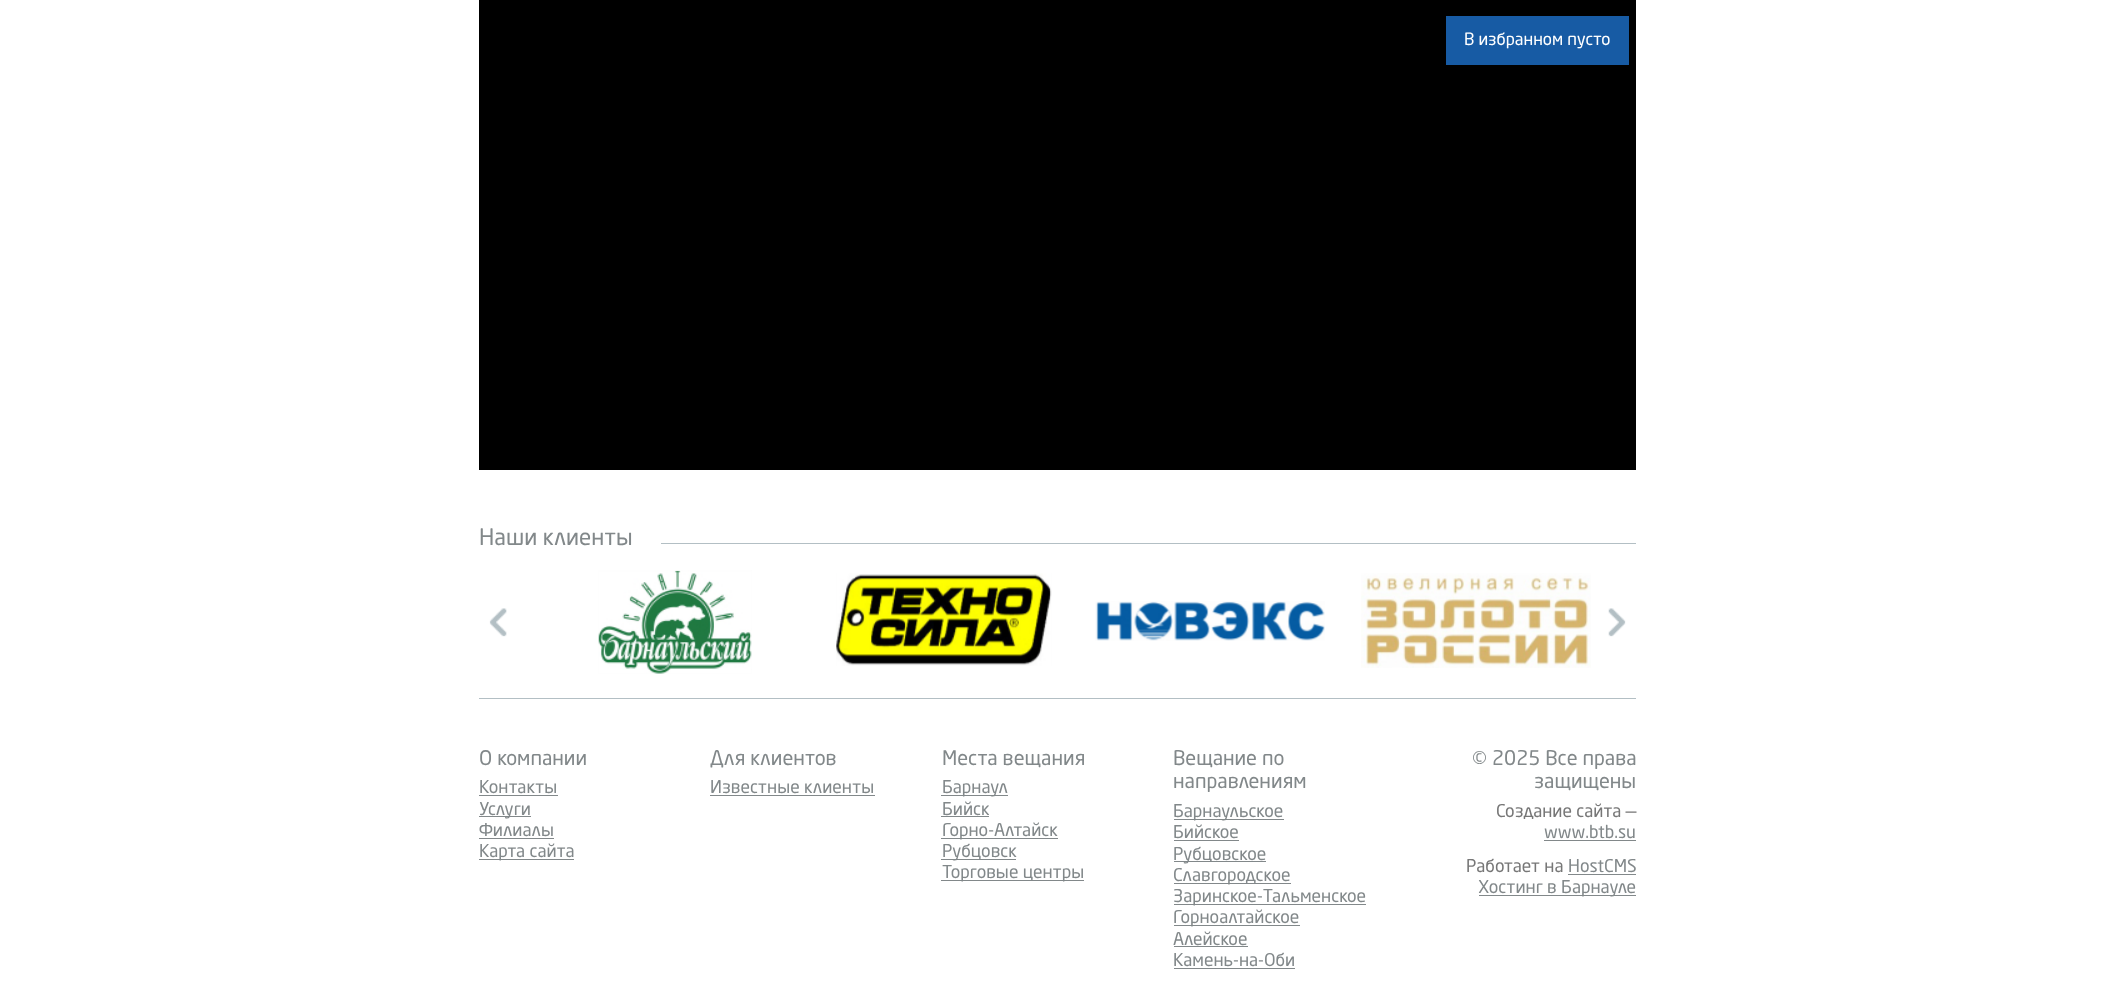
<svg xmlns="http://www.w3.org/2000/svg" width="2115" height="991">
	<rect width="100%" height="100%" fill="#FFFFFF" />
	<rect x="479" y="0" width="1157" height="470" fill="#000000" />
	<rect x="1446" y="16" width="183" height="49" fill="#175BA4" />
	<text x="1464" y="45" font-family="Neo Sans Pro" font-size="16.75" fill="#FFFFFF">В избранном пусто</text>
	<rect x="661" y="543" width="975" height="1" fill="#B3BFC4" />
	<rect x="479" y="698" width="1157" height="1" fill="#B3BFC4" />
	<text x="479" y="545" font-family="Neo Sans Pro" font-size="22.5" fill="#82888A">Наши клиенты</text>
	<image x="489" y="608" width="18" height="29" href="assets/img1.png" />
	<image x="598" y="570" width="154" height="104" href="assets/img2.png" />
	<image x="836" y="573" width="216" height="93" href="assets/img3.png" />
	<image x="1095" y="601" width="230" height="40" href="assets/img4.png" />
	<image x="1361" y="573" width="230" height="95" href="assets/img5.png" />
	<image x="1608" y="608" width="18" height="29" href="assets/img6.png" />
	<text x="479" y="765" font-family="Neo Sans Pro" font-size="20" fill="#82888A">О компании</text>
	<text x="479" y="793" font-family="Neo Sans Pro" font-size="17.5" fill="#82888A">Контакты</text>
	<rect x="479" y="795" width="79" height="1" fill="#82888A" />
	<rect x="479" y="816" width="52" height="1" fill="#82888A" />
	<g font-family="Neo Sans Pro" font-size="17.5" fill="#82888A">
		<text x="479" y="815">Услуги</text>
		<text x="479" y="836">Филиалы</text>
	</g>
	<rect x="479" y="838" width="75" height="1" fill="#82888A" />
	<rect x="479" y="859" width="95" height="1" fill="#82888A" />
	<text x="479" y="857" font-family="Neo Sans Pro" font-size="17.5" fill="#82888A">Карта сайта</text>
	<text x="710" y="765" font-family="Neo Sans Pro" font-size="20" fill="#82888A">Для клиентов</text>
	<text x="710" y="793" font-family="Neo Sans Pro" font-size="17.5" fill="#82888A">Известные клиенты</text>
	<rect x="710" y="795" width="165" height="1" fill="#82888A" />
	<text x="942" y="765" font-family="Neo Sans Pro" font-size="20" fill="#82888A">Места вещания</text>
	<rect x="941" y="795" width="67" height="1" fill="#82888A" />
	<g font-family="Neo Sans Pro" font-size="17.5" fill="#82888A">
		<text x="942" y="793">Барнаул</text>
		<text x="942" y="815">Бийск</text>
	</g>
	<rect x="941" y="816" width="48" height="1" fill="#82888A" />
	<rect x="941" y="838" width="117" height="1" fill="#82888A" />
	<text x="942" y="836" font-family="Neo Sans Pro" font-size="17.5" fill="#82888A">Горно-Алтайск</text>
	<rect x="941" y="859" width="75" height="1" fill="#82888A" />
	<text x="942" y="857" font-family="Neo Sans Pro" font-size="17.5" fill="#82888A">Рубцовск</text>
	<rect x="941" y="880" width="143" height="1" fill="#82888A" />
	<text x="942" y="878" font-family="Neo Sans Pro" font-size="17.5" fill="#82888A">Торговые центры</text>
	<g font-family="Neo Sans Pro" font-size="20" fill="#82888A">
		<text x="1173" y="765">Вещание по</text>
		<text x="1173" y="788">направлениям</text>
	</g>
	<rect x="1174" y="819" width="110" height="1" fill="#82888A" />
	<g font-family="Neo Sans Pro" font-size="17.5" fill="#82888A">
		<text x="1173" y="817">Барнаульское</text>
		<text x="1173" y="838">Бийское</text>
	</g>
	<rect x="1174" y="840" width="65" height="1" fill="#82888A" />
	<rect x="1174" y="861" width="92" height="1" fill="#82888A" />
	<text x="1173" y="860" font-family="Neo Sans Pro" font-size="17.5" fill="#82888A">Рубцовское</text>
	<rect x="1174" y="883" width="117" height="1" fill="#82888A" />
	<text x="1173" y="881" font-family="Neo Sans Pro" font-size="17.5" fill="#82888A">Славгородское</text>
	<rect x="1174" y="904" width="192" height="1" fill="#82888A" />
	<text x="1173" y="902" font-family="Neo Sans Pro" font-size="17.5" fill="#82888A">Заринское-Тальменское</text>
	<rect x="1174" y="925" width="126" height="1" fill="#82888A" />
	<g font-family="Neo Sans Pro" font-size="17.5" fill="#82888A">
		<text x="1173" y="923">Горноалтайское</text>
		<text x="1173" y="945">Алейское</text>
	</g>
	<rect x="1174" y="946" width="74" height="1" fill="#82888A" />
	<text x="1173" y="966" font-family="Neo Sans Pro" font-size="17.5" fill="#82888A">Камень-на-Оби</text>
	<rect x="1174" y="968" width="121" height="1" fill="#82888A" />
	<g font-family="Neo Sans Pro" font-size="20" fill="#82888A">
		<text x="1472" y="765">© 2025 Все права</text>
		<text x="1534" y="788">защищены</text>
	</g>
	<text x="1496" y="817" font-family="Neo Sans Pro" font-size="17.5" fill="#777777">Создание сайта —</text>
	<text x="1544" y="838" font-family="Neo Sans Pro" font-size="17.5" fill="#82888A">www.btb.su</text>
	<rect x="1544" y="840" width="92" height="1" fill="#82888A" />
	<text x="1466" y="872" font-family="Neo Sans Pro" font-size="17.5" fill="#777777">Работает на</text>
	<text x="1568" y="872" font-family="Neo Sans Pro" font-size="17.5" fill="#82888A">HostCMS</text>
	<rect x="1568" y="874" width="68" height="1" fill="#82888A" />
	<rect x="1479" y="895" width="157" height="1" fill="#82888A" />
	<text x="1478" y="893" font-family="Neo Sans Pro" font-size="17.5" fill="#82888A">Хостинг в Барнауле</text>
</svg>
